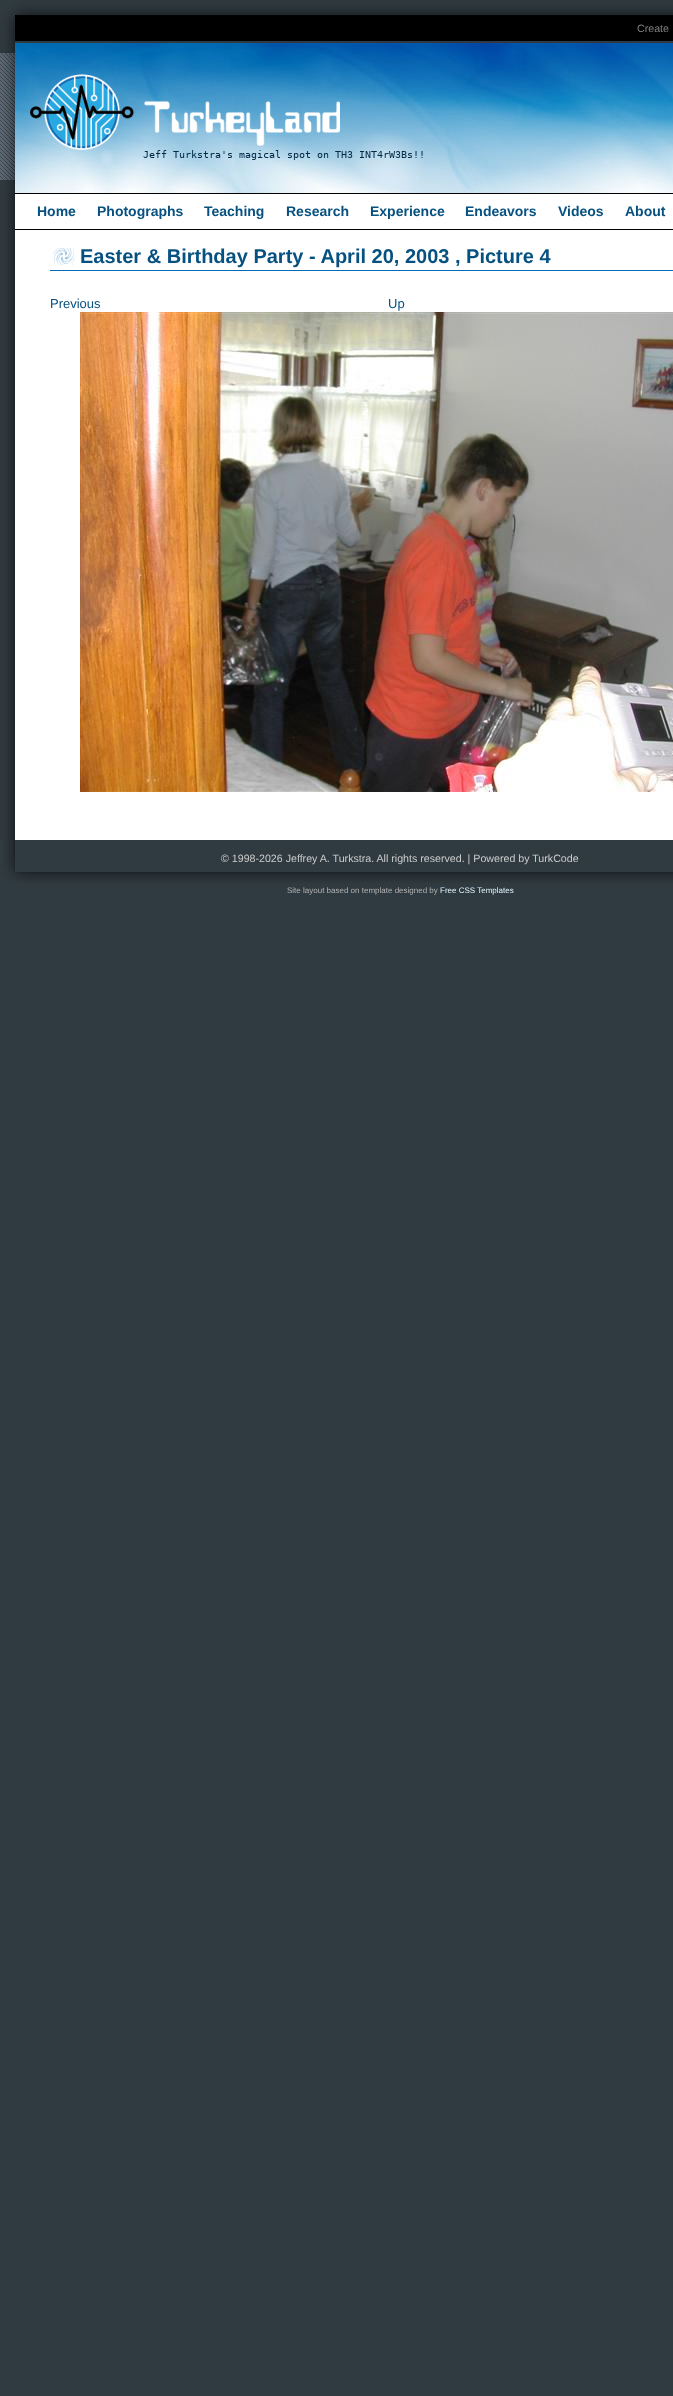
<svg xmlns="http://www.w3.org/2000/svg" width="673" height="2396">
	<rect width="100%" height="100%" fill="#303B41" />
	<rect x="15" y="194" width="658" height="646" fill="#FFFFFF" />
	<image x="0" y="193" width="15" height="647" href="assets/img1.png" />
	<image x="0" y="0" width="673" height="44" href="assets/img2.png" />
	<text x="637" y="32" font-family="Liberation Sans" font-size="10.65" fill="#808080">Create</text>
	<image x="0" y="44" width="673" height="149" href="assets/img3.png" />
	<image x="30" y="74" width="393" height="86" href="assets/img4.png" />
	<rect x="15" y="193" width="658" height="1" fill="#000000" />
	<rect x="15" y="229" width="658" height="1" fill="#000000" />
	<g font-family="Liberation Sans" font-size="14" font-weight="700" fill="#075181">
		<text x="37" y="216">Home</text>
		<text x="97" y="216">Photographs</text>
		<text x="204" y="216">Teaching</text>
		<text x="286" y="216">Research</text>
		<text x="370" y="216">Experience</text>
		<text x="465" y="216">Endeavors</text>
		<text x="558" y="216">Videos</text>
		<text x="625" y="216">About</text>
	</g>
	<image x="52" y="248" width="24" height="17" href="assets/img5.png" />
	<text x="80" y="263" font-family="Liberation Sans" font-size="20" font-weight="700" fill="#075181">Easter &amp; Birthday Party - April 20, 2003 , Picture 4</text>
	<rect x="50" y="270" width="623" height="1" fill="#036CB4" />
	<g font-family="Liberation Sans" font-size="13" fill="#075181">
		<text x="50" y="308">Previous</text>
		<text x="388" y="308">Up</text>
	</g>
	<image x="80" y="312" width="593" height="480" href="assets/img6.png" />
	<image x="3" y="840" width="670" height="43" href="assets/img7.png" />
	<text x="221" y="862" font-family="Liberation Sans" font-size="10.65" fill="#CCCCCC">© 1998-2026 Jeffrey A. Turkstra. All rights reserved. | Powered by TurkCode</text>
	<text x="287" y="893" font-family="Liberation Sans" font-size="8" fill="#B2B2B2">Site layout based on template designed by</text>
	<text x="440" y="893" font-family="Liberation Sans" font-size="8" fill="#E0F5FF">Free CSS Templates</text>
</svg>
